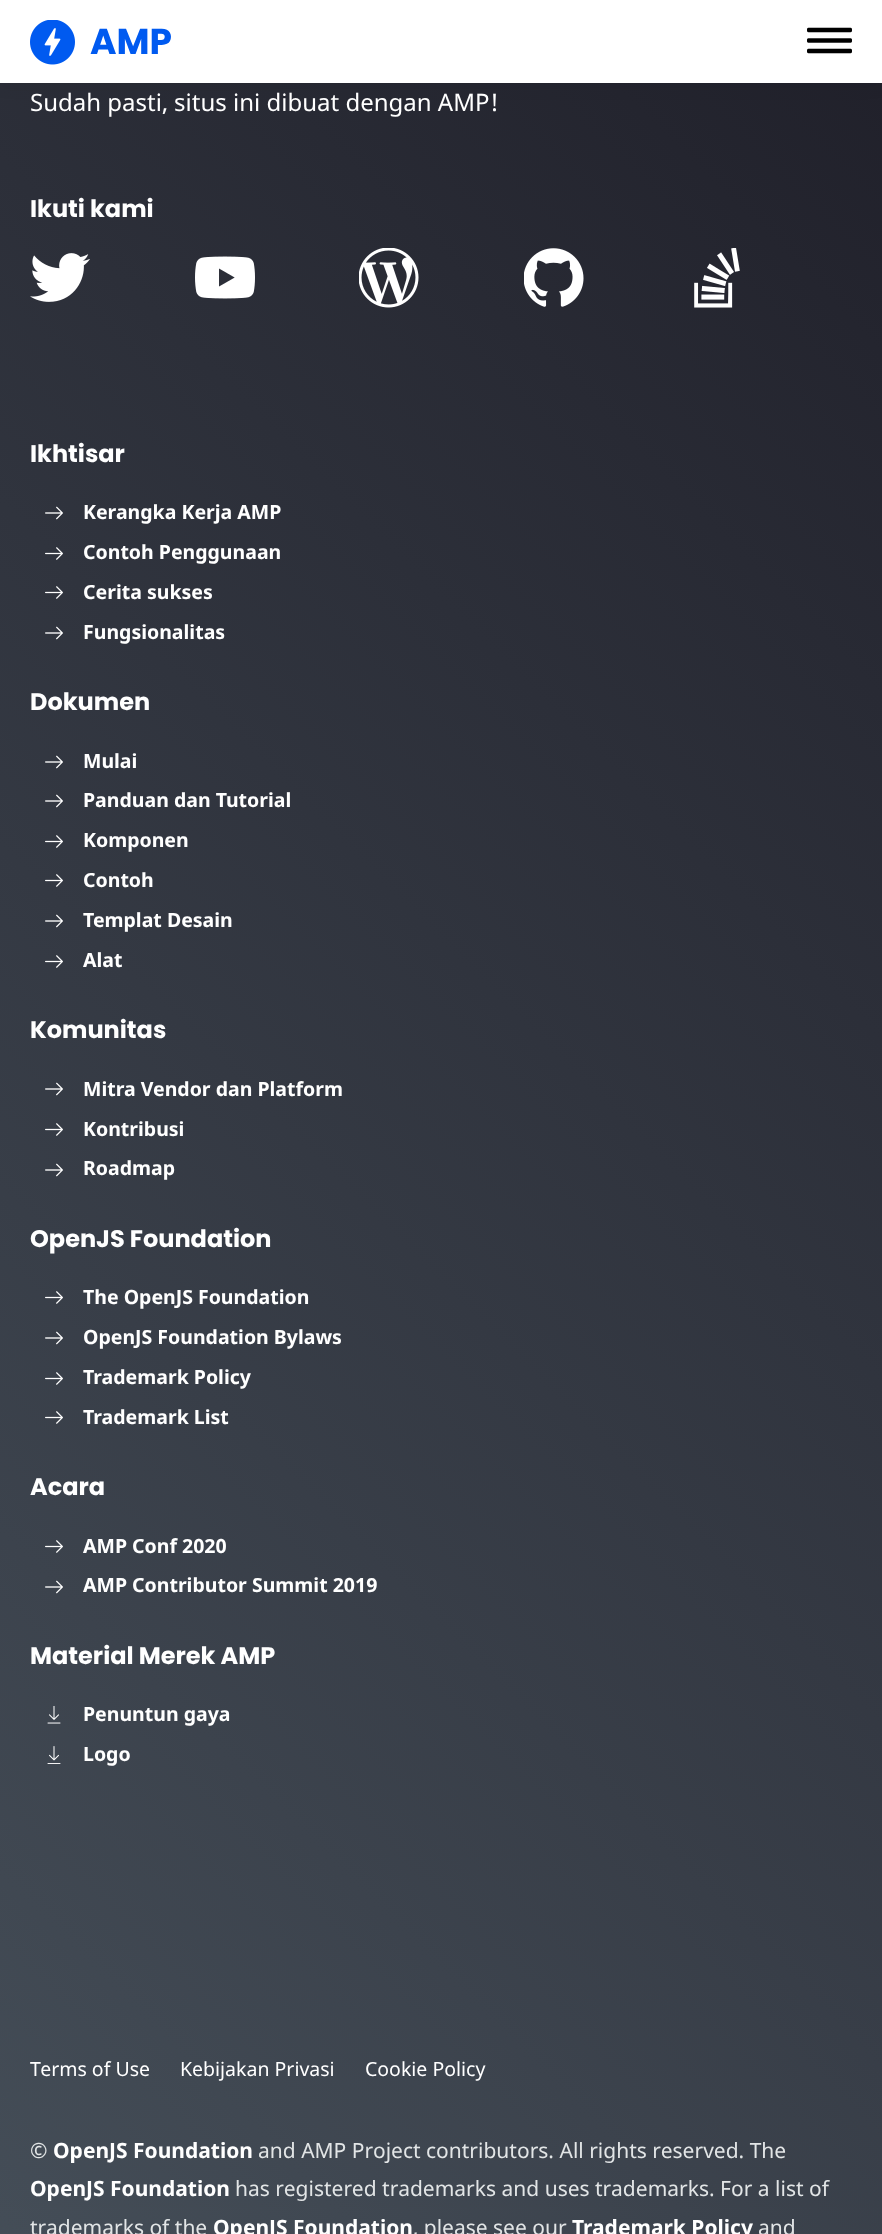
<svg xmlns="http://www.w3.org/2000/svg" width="882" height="2234">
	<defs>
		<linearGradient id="g1" gradientUnits="userSpaceOnUse" x1="-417" y1="2146" x2="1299" y2="429"><stop offset="0" stop-color="#48525C" /><stop offset="1" stop-color="#20202A" /></linearGradient>
	</defs>
	<rect width="100%" height="100%" fill="#FFFFFF" />
	<rect x="0" y="83" width="882" height="2151" fill="url(#g1)" />
	<rect x="0" y="3" width="882" height="83" fill="#000000" fill-opacity="0.07" filter="blur(7.5px)" />
	<rect x="0" y="0" width="882" height="83" fill="#FFFFFF" />
	<image x="30" y="20" width="45" height="45" href="assets/img1.png" />
	<text x="90" y="54" font-family="Poppins" font-size="36" font-weight="700" fill="#005AF0">AMP</text>
	<image x="807" y="27" width="45" height="27" href="assets/img2.png" />
	<text x="30" y="111" font-family="Noto Sans" font-size="24" fill="#FFFFFF">Sudah pasti, situs ini dibuat dengan AMP!</text>
	<text x="30" y="217" font-family="Poppins" font-size="24" font-weight="700" fill="#FFFFFF">Ikuti kami</text>
	<image x="30" y="253" width="60" height="49" href="assets/img3.png" />
	<image x="195" y="256" width="60" height="43" href="assets/img4.png" />
	<image x="359" y="248" width="60" height="60" href="assets/img5.png" />
	<image x="524" y="248" width="60" height="59" href="assets/img6.png" />
	<image x="694" y="248" width="46" height="60" href="assets/img7.png" />
	<text x="30" y="462" font-family="Poppins" font-size="24" font-weight="700" fill="#FFFFFF">Ikhtisar</text>
	<image x="45" y="506" width="18" height="14" href="assets/img8.png" />
	<text x="83" y="519" font-family="Noto Sans" font-size="19.5" font-weight="700" fill="#FFFFFF">Kerangka Kerja AMP</text>
	<image x="45" y="547" width="18" height="13" href="assets/img9.png" />
	<text x="83" y="559" font-family="Noto Sans" font-size="19.5" font-weight="700" fill="#FFFFFF">Contoh Penggunaan</text>
	<image x="45" y="586" width="18" height="13" href="assets/img10.png" />
	<text x="83" y="599" font-family="Noto Sans" font-size="19.5" font-weight="700" fill="#FFFFFF">Cerita sukses</text>
	<image x="45" y="626" width="18" height="14" href="assets/img11.png" />
	<text x="83" y="639" font-family="Noto Sans" font-size="19.5" font-weight="700" fill="#FFFFFF">Fungsionalitas</text>
	<text x="30" y="710" font-family="Poppins" font-size="24" font-weight="700" fill="#FFFFFF">Dokumen</text>
	<image x="45" y="755" width="18" height="14" href="assets/img12.png" />
	<text x="83" y="768" font-family="Noto Sans" font-size="19.5" font-weight="700" fill="#FFFFFF">Mulai</text>
	<image x="45" y="794" width="18" height="14" href="assets/img13.png" />
	<text x="83" y="807" font-family="Noto Sans" font-size="19.5" font-weight="700" fill="#FFFFFF">Panduan dan Tutorial</text>
	<image x="45" y="835" width="18" height="13" href="assets/img14.png" />
	<text x="83" y="847" font-family="Noto Sans" font-size="19.5" font-weight="700" fill="#FFFFFF">Komponen</text>
	<image x="45" y="874" width="18" height="13" href="assets/img15.png" />
	<text x="83" y="887" font-family="Noto Sans" font-size="19.5" font-weight="700" fill="#FFFFFF">Contoh</text>
	<image x="45" y="914" width="18" height="14" href="assets/img16.png" />
	<text x="83" y="927" font-family="Noto Sans" font-size="19.5" font-weight="700" fill="#FFFFFF">Templat Desain</text>
	<image x="45" y="955" width="18" height="13" href="assets/img17.png" />
	<text x="83" y="967" font-family="Noto Sans" font-size="19.5" font-weight="700" fill="#FFFFFF">Alat</text>
	<text x="30" y="1038" font-family="Poppins" font-size="24" font-weight="700" fill="#FFFFFF">Komunitas</text>
	<image x="45" y="1082" width="18" height="14" href="assets/img18.png" />
	<text x="83" y="1096" font-family="Noto Sans" font-size="19.5" font-weight="700" fill="#FFFFFF">Mitra Vendor dan Platform</text>
	<image x="45" y="1123" width="18" height="13" href="assets/img19.png" />
	<text x="83" y="1136" font-family="Noto Sans" font-size="19.5" font-weight="700" fill="#FFFFFF">Kontribusi</text>
	<image x="45" y="1163" width="18" height="14" href="assets/img20.png" />
	<text x="83" y="1175" font-family="Noto Sans" font-size="19.5" font-weight="700" fill="#FFFFFF">Roadmap</text>
	<text x="30" y="1247" font-family="Poppins" font-size="24" font-weight="700" fill="#FFFFFF">OpenJS Foundation</text>
	<image x="45" y="1291" width="18" height="13" href="assets/img21.png" />
	<text x="83" y="1304" font-family="Noto Sans" font-size="19.5" font-weight="700" fill="#FFFFFF">The OpenJS Foundation</text>
	<image x="45" y="1331" width="18" height="14" href="assets/img22.png" />
	<text x="83" y="1344" font-family="Noto Sans" font-size="19.5" font-weight="700" fill="#FFFFFF">OpenJS Foundation Bylaws</text>
	<image x="45" y="1372" width="18" height="13" href="assets/img23.png" />
	<text x="83" y="1384" font-family="Noto Sans" font-size="19.5" font-weight="700" fill="#FFFFFF">Trademark Policy</text>
	<image x="45" y="1411" width="18" height="13" href="assets/img24.png" />
	<text x="83" y="1424" font-family="Noto Sans" font-size="19.5" font-weight="700" fill="#FFFFFF">Trademark List</text>
	<text x="30" y="1495" font-family="Poppins" font-size="24" font-weight="700" fill="#FFFFFF">Acara</text>
	<image x="45" y="1540" width="18" height="13" href="assets/img25.png" />
	<text x="83" y="1553" font-family="Noto Sans" font-size="19.5" font-weight="700" fill="#FFFFFF">AMP Conf 2020</text>
	<image x="45" y="1580" width="18" height="14" href="assets/img26.png" />
	<text x="83" y="1592" font-family="Noto Sans" font-size="19.5" font-weight="700" fill="#FFFFFF">AMP Contributor Summit 2019</text>
	<text x="30" y="1664" font-family="Poppins" font-size="24" font-weight="700" fill="#FFFFFF">Material Merek AMP</text>
	<image x="47" y="1706" width="14" height="18" href="assets/img27.png" />
	<text x="83" y="1721" font-family="Noto Sans" font-size="19.5" font-weight="700" fill="#FFFFFF">Penuntun gaya</text>
	<image x="47" y="1746" width="14" height="18" href="assets/img28.png" />
	<text x="83" y="1761" font-family="Noto Sans" font-size="19.5" font-weight="700" fill="#FFFFFF">Logo</text>
	<g font-family="Noto Sans" font-size="19.5" fill="#FFFFFF">
		<text x="30" y="2076">Terms of Use</text>
		<text x="180" y="2076">Kebijakan Privasi</text>
		<text x="365" y="2076">Cookie Policy</text>
	</g>
	<text x="30" y="2158" font-family="Noto Sans" font-size="21" fill="#E2E5E6">©</text>
	<text x="53" y="2158" font-family="Noto Sans" font-size="21" font-weight="700" fill="#FFFFFF">OpenJS Foundation</text>
	<text x="258" y="2158" font-family="Noto Sans" font-size="21" fill="#E2E5E6">and AMP Project contributors. All rights reserved. The</text>
	<text x="30" y="2196" font-family="Noto Sans" font-size="21" font-weight="700" fill="#FFFFFF">OpenJS Foundation</text>
	<g font-family="Noto Sans" font-size="21" fill="#E2E5E6">
		<text x="235" y="2196">has registered trademarks and uses trademarks. For a list of</text>
		<text x="30" y="2235">trademarks of the</text>
	</g>
	<text x="213" y="2235" font-family="Noto Sans" font-size="21" font-weight="700" fill="#FFFFFF">OpenJS Foundation</text>
	<text x="413" y="2235" font-family="Noto Sans" font-size="21" fill="#E2E5E6">, please see our</text>
	<text x="572" y="2235" font-family="Noto Sans" font-size="21" font-weight="700" fill="#FFFFFF">Trademark Policy</text>
	<text x="758" y="2235" font-family="Noto Sans" font-size="21" fill="#E2E5E6">and</text>
</svg>
